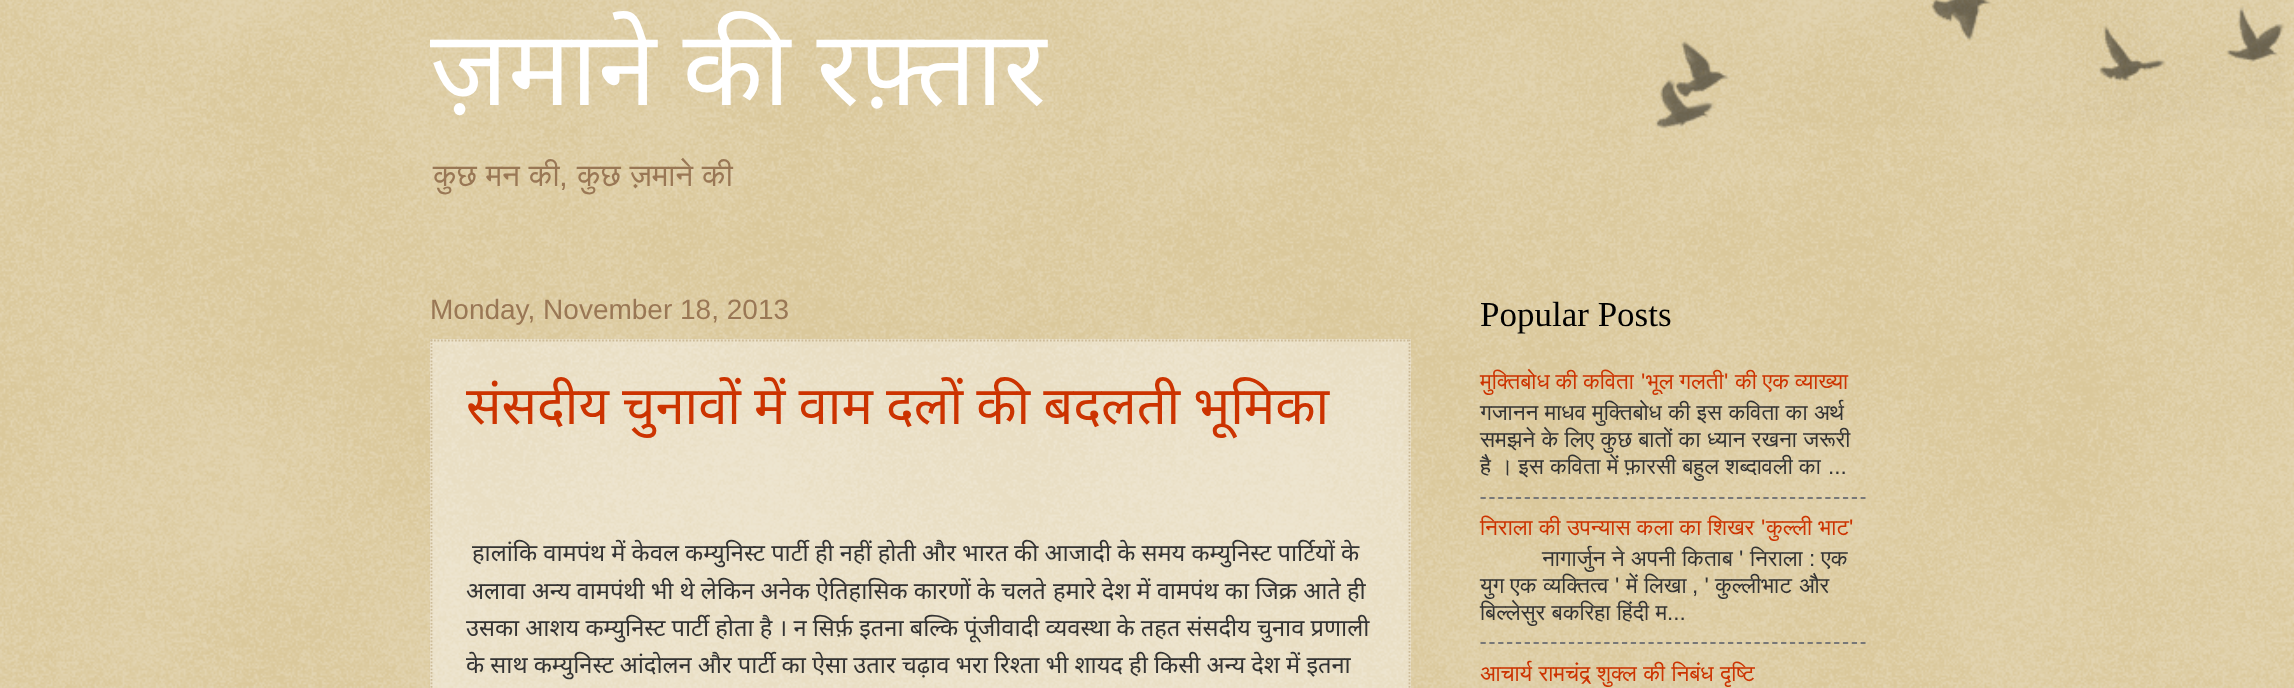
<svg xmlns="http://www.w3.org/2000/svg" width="2294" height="688">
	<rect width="100%" height="100%" fill="#C0A154" />
	<image x="0" y="0" width="2294" height="688" href="assets/img1.png" />
	<text x="430" y="105" word-spacing="-1" font-family="Noto Sans" font-size="105" fill="#FFFFFF">ज़माने की रफ़्तार</text>
	<text x="433" y="186" word-spacing="1" font-family="FreeSans" font-size="31.5" fill="#997755">कुछ मन की</text>
	<text x="559" y="186" font-family="Liberation Sans" font-size="31.5" fill="#997755">,</text>
	<text x="577" y="186" word-spacing="1" font-family="FreeSans" font-size="31.5" fill="#997755">कुछ ज़माने की</text>
	<text x="430" y="319" font-family="Liberation Sans" font-size="28" fill="#997755">Monday, November 18, 2013</text>
	<rect x="430" y="339" width="981" height="349" fill="#FFFFFF" fill-opacity="0.4" />
	<path d="M430.5 340.5H1410.5" fill="none" stroke="#CCBB99" stroke-width="1.8" stroke-dasharray="1.75 1.75" />
	<path d="M1409.5 339.5V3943" fill="none" stroke="#CCBB99" stroke-width="1.8" stroke-dasharray="1.75 1.75" />
	<path d="M431.5 339.5V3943" fill="none" stroke="#CCBB99" stroke-width="1.8" stroke-dasharray="1.75 1.75" />
	<text x="466" y="424" word-spacing="-0.5" font-family="Noto Sans" font-size="52.5" fill="#CC3300">संसदीय चुनावों में वाम दलों की बदलती भूमिका</text>
	<g font-family="Noto Sans" font-size="23.65" fill="#333333">
		<text x="472" y="561">हालांकि वामपंथ में केवल कम्युनिस्ट पार्टी ही नहीं होती और भारत की आजादी के समय कम्युनिस्ट पार्टियों के</text>
		<text x="466" y="599">अलावा अन्य वामपंथी भी थे लेकिन अनेक ऐतिहासिक कारणों के चलते</text>
		<text x="1053" y="599">हमारे देश में वामपंथ का जिक्र आते ही</text>
		<text x="466" y="636">उसका आशय कम्युनिस्ट पार्टी होता है । न सिर्फ़ इतना बल्कि पूंजीवादी व्यवस्था के तहत संसदीय चुनाव प्रणाली</text>
		<text x="466" y="673">के साथ कम्युनिस्ट आंदोलन और पार्टी का ऐसा उतार चढ़ाव भरा रिश्ता भी शायद ही किसी अन्य देश में इतना</text>
	</g>
	<text x="1480" y="326" font-family="Liberation Serif" font-size="35" fill="#000000">Popular Posts</text>
	<text x="1480" y="389" font-family="FreeSans" font-size="22.5" fill="#CC3300">मुक्तिबोध की कविता</text>
	<text x="1641" y="389" font-family="Liberation Sans" font-size="22.5" fill="#CC3300">'</text>
	<g font-family="FreeSans" font-size="22.5" fill="#CC3300">
		<text x="1646" y="389">भूल गलती</text>
		<text x="1735" y="389">की एक व्याख्या</text>
	</g>
	<text x="1724" y="389" font-family="Liberation Sans" font-size="22.5" fill="#CC3300">'</text>
	<g font-family="FreeSans" font-size="22.5" fill="#333333">
		<text x="1480" y="420" word-spacing="0.75">गजानन माधव मुक्तिबोध की इस कविता का अर्थ</text>
		<text x="1480" y="447" word-spacing="0.75">समझने के लिए कुछ बातों का ध्यान रखना जरूरी</text>
		<text x="1480" y="474" word-spacing="0.5">है । इस कविता में फ़ारसी बहुल शब्दावली का</text>
	</g>
	<text x="1828" y="474" font-family="Liberation Sans" font-size="22.5" fill="#333333">...</text>
	<path d="M1480.5 498H1865.5" fill="none" stroke="#777777" stroke-width="1.8" stroke-dasharray="5.25 3.59" />
	<text x="1480" y="535" word-spacing="0.5" font-family="FreeSans" font-size="22.5" fill="#CC3300">निराला की उपन्यास कला का शिखर</text>
	<text x="1761" y="535" font-family="Liberation Sans" font-size="22.5" fill="#CC3300">'</text>
	<text x="1766" y="535" word-spacing="0.5" font-family="FreeSans" font-size="22.5" fill="#CC3300">कुल्ली भाट</text>
	<text x="1849" y="535" font-family="Liberation Sans" font-size="22.5" fill="#CC3300">'</text>
	<text x="1542" y="566" word-spacing="0.75" font-family="FreeSans" font-size="22.5" fill="#333333">नागार्जुन ने अपनी किताब</text>
	<text x="1739" y="566" font-family="Liberation Sans" font-size="22.5" fill="#333333">'</text>
	<text x="1750" y="566" font-family="FreeSans" font-size="22.5" fill="#333333">निराला</text>
	<text x="1809" y="566" font-family="Liberation Sans" font-size="22.5" fill="#333333">:</text>
	<g font-family="FreeSans" font-size="22.5" fill="#333333">
		<text x="1821" y="566">एक</text>
		<text x="1543" y="593">व्यक्तित्व</text>
	</g>
	<text x="1615" y="593" font-family="Liberation Sans" font-size="22.5" fill="#333333">'</text>
	<g font-family="FreeSans" font-size="22.5" fill="#333333">
		<text x="1626" y="593">में</text>
		<text x="1644" y="593">लिखा</text>
	</g>
	<text x="1692" y="593" font-family="Liberation Sans" font-size="22.5" fill="#333333">, '</text>
	<g font-family="FreeSans" font-size="22.5" fill="#333333">
		<text x="1715" y="593">कुल्लीभाट</text>
		<text x="1799" y="593">और</text>
		<text x="1480" y="593">युग</text>
		<text x="1510" y="593">एक</text>
		<text x="1480" y="620" word-spacing="0.75">बिल्लेसुर बकरिहा हिंदी म</text>
	</g>
	<text x="1667" y="620" font-family="Liberation Sans" font-size="22.5" fill="#333333">...</text>
	<path d="M1480.5 643H1865.5" fill="none" stroke="#777777" stroke-width="1.8" stroke-dasharray="5.25 3.59" />
	<text x="1480" y="681" word-spacing="0.75" font-family="FreeSans" font-size="22.5" fill="#CC3300">आचार्य रामचंद्र शुक्ल की निबंध दृष्टि</text>
	<image x="1655" y="0" width="630" height="129" href="assets/img2.png" />
</svg>
